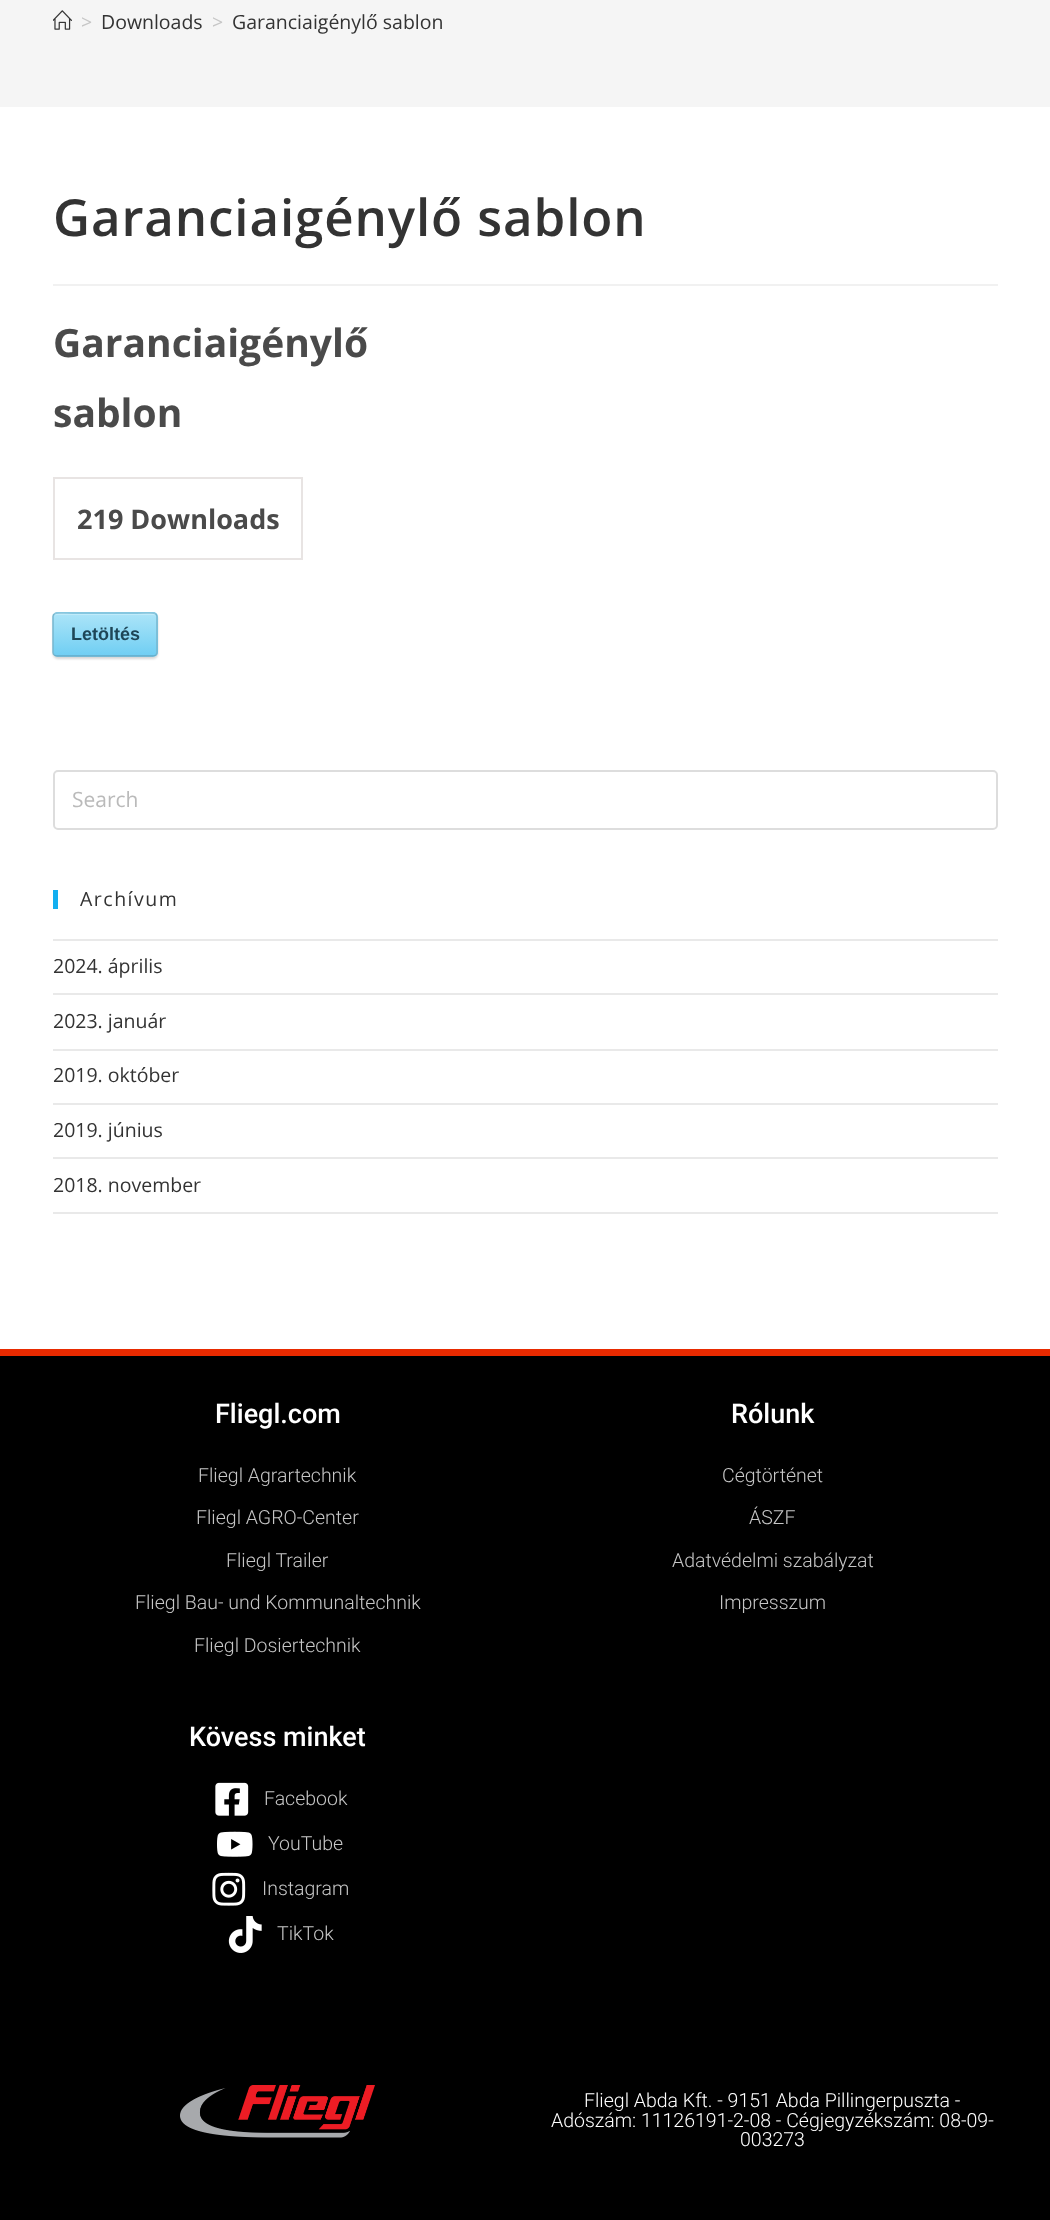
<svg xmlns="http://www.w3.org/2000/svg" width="1050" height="2220">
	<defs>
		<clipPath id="clip1"><rect x="53" y="612" width="105" height="45" rx="5" /></clipPath>
		<linearGradient id="g1" gradientUnits="userSpaceOnUse" x1="54" y1="572" x2="54" y2="614"><stop offset="0" stop-color="#ABE4F8" /><stop offset="1" stop-color="#6FCEF3" /></linearGradient>
		<linearGradient id="g2" gradientUnits="userSpaceOnUse" x1="54" y1="614" x2="54" y2="656"><stop offset="0" stop-color="#ABE4F8" /><stop offset="1" stop-color="#6FCEF3" /></linearGradient>
		<linearGradient id="g3" gradientUnits="userSpaceOnUse" x1="54" y1="656" x2="54" y2="698"><stop offset="0" stop-color="#ABE4F8" /><stop offset="1" stop-color="#6FCEF3" /></linearGradient>
	</defs>
	<rect width="100%" height="100%" fill="#FFFFFF" />
	<rect x="0" y="0" width="1050" height="107" fill="#F5F5F5" />
	<image x="53" y="10" width="19" height="20" href="assets/img1.png" />
	<text x="81" y="29" font-family="Open Sans" font-size="19.5" fill="#C6C6C6">&gt;</text>
	<text x="101" y="29" font-family="Open Sans" font-size="19.5" fill="#333333">Downloads</text>
	<text x="212" y="29" font-family="Open Sans" font-size="19.5" fill="#C6C6C6">&gt;</text>
	<text x="232" y="29" font-family="Open Sans" font-size="19.5" fill="#333333">Garanciaigénylő sablon</text>
	<rect x="53" y="284" width="945" height="2" fill="#F1F1F1" />
	<text x="53" y="236" font-family="Open Sans" font-size="51" font-weight="600" letter-spacing="0.9" fill="#333333">Garanciaigénylő sablon</text>
	<g font-family="Open Sans" font-size="39" font-weight="700" fill="#4A4A4A">
		<text x="53" y="357">Garanciaigénylő</text>
		<text x="53" y="427">sablon</text>
	</g>
	<rect x="54" y="478" width="248" height="81" fill="none" stroke="#E8E4E3" stroke-width="2" />
	<text x="77" y="529" font-family="Open Sans" font-size="27" font-weight="700" fill="#4A4A4A">219 Downloads</text>
	<rect x="53" y="614" width="105" height="45" rx="5" fill="#D6D6D6" filter="blur(1px)" />
	<g clip-path="url(#clip1)">
		<rect x="53" y="612" width="105" height="2" fill="url(#g1)" />
		<rect x="53" y="614" width="105" height="42" fill="url(#g2)" />
		<rect x="53" y="656" width="105" height="1" fill="url(#g3)" />
	</g>
	<path d="M57 615H153C155 615 156 616 156 618C156 610 140 614 137 614H73C70 614 54 610 54 618C54 616 55 615 57 615Z" fill="#C0EBFA" />
	<path d="M54.5 614C55 613 56 613 57 613H153C154 613 155 613 155.5 614" fill="none" stroke="#8DC5DA" stroke-width="1.5" />
	<path d="M155.5 614C156.5 614.5 157 615.5 157 616.5V652.5C157 653.5 156.5 654.5 155.5 655" fill="none" stroke="#76B7CF" stroke-width="1.5" />
	<path d="M155.5 655C155 656 154 656 153 656H57C56 656 55 656 54.5 655" fill="none" stroke="#63ABC7" stroke-width="1.5" />
	<path d="M54.5 655C53.5 654.5 53 653.5 53 652.5V616.5C53 615.5 53.5 614.5 54.5 614" fill="none" stroke="#76B7CF" stroke-width="1.5" />
	<text x="71" y="640" font-family="Liberation Sans" font-size="18" font-weight="700" fill="#1E4657">Letöltés</text>
	<rect x="54" y="771" width="943" height="58" rx="4" fill="none" stroke="#DDDDDD" stroke-width="2" />
	<text x="72" y="807" font-family="Open Sans" font-size="21" fill="#BABABA">Search</text>
	<rect x="53" y="890" width="5" height="19" fill="#13AFF0" />
	<text x="80" y="906" font-family="Open Sans" font-size="19.5" letter-spacing="1.5" fill="#333333">Archívum</text>
	<rect x="53" y="939" width="945" height="2" fill="#E9E9E9" />
	<rect x="53" y="993" width="945" height="2" fill="#E9E9E9" />
	<text x="53" y="973" font-family="Open Sans" font-size="19.5" fill="#333333">2024. április</text>
	<rect x="53" y="1049" width="945" height="2" fill="#E9E9E9" />
	<text x="53" y="1028" font-family="Open Sans" font-size="19.5" fill="#333333">2023. január</text>
	<rect x="53" y="1103" width="945" height="2" fill="#E9E9E9" />
	<text x="53" y="1082" font-family="Open Sans" font-size="19.5" fill="#333333">2019. október</text>
	<rect x="53" y="1157" width="945" height="2" fill="#E9E9E9" />
	<text x="53" y="1137" font-family="Open Sans" font-size="19.5" fill="#333333">2019. június</text>
	<rect x="53" y="1212" width="945" height="2" fill="#E9E9E9" />
	<text x="53" y="1192" font-family="Open Sans" font-size="19.5" fill="#333333">2018. november</text>
	<rect x="0" y="1356" width="1050" height="864" fill="#000000" />
	<rect x="0" y="1349" width="1050" height="7" fill="#E82A00" />
	<text x="215" y="1423" font-family="Roboto" font-size="27" font-weight="500" fill="#FFFFFF">Fliegl.com</text>
	<g font-family="Roboto" font-size="19.5" font-weight="300" fill="#C6C6C6">
		<text x="198" y="1482">Fliegl Agrartechnik</text>
		<text x="196" y="1524">Fliegl AGRO-Center</text>
		<text x="226" y="1567">Fliegl Trailer</text>
		<text x="135" y="1609">Fliegl Bau- und Kommunaltechnik</text>
		<text x="194" y="1652">Fliegl Dosiertechnik</text>
	</g>
	<text x="731" y="1423" font-family="Roboto" font-size="27" font-weight="500" fill="#FFFFFF">Rólunk</text>
	<g font-family="Roboto" font-size="19.5" font-weight="300" fill="#C6C6C6">
		<text x="722" y="1482">Cégtörténet</text>
		<text x="749" y="1524">ÁSZF</text>
		<text x="672" y="1567">Adatvédelmi szabályzat</text>
		<text x="719" y="1609">Impresszum</text>
	</g>
	<text x="189" y="1746" font-family="Roboto" font-size="27" font-weight="500" fill="#FFFFFF">Kövess minket</text>
	<image x="215" y="1782" width="34" height="34" href="assets/img2.png" />
	<text x="264" y="1805" font-family="Roboto" font-size="19.5" font-weight="300" fill="#C6C6C6">Facebook</text>
	<image x="217" y="1831" width="36" height="26" href="assets/img3.png" />
	<text x="268" y="1850" font-family="Roboto" font-size="19.5" font-weight="300" fill="#C6C6C6">YouTube</text>
	<image x="212" y="1872" width="34" height="34" href="assets/img4.png" />
	<text x="262" y="1895" font-family="Roboto" font-size="19.5" font-weight="300" fill="#C6C6C6">Instagram</text>
	<image x="228" y="1916" width="34" height="37" href="assets/img5.png" />
	<text x="277" y="1940" font-family="Roboto" font-size="19.5" font-weight="300" fill="#C6C6C6">TikTok</text>
	<image x="180" y="2085" width="195" height="53" href="assets/img6.png" />
	<g font-family="Roboto" font-size="19.5" font-weight="300" fill="#FFFFFF">
		<text x="584" y="2107">Fliegl Abda Kft. - 9151 Abda Pillingerpuszta -</text>
		<text x="551" y="2127">Adószám: 11126191-2-08 - Cégjegyzékszám: 08-09-</text>
		<text x="740" y="2146">003273</text>
	</g>
</svg>
